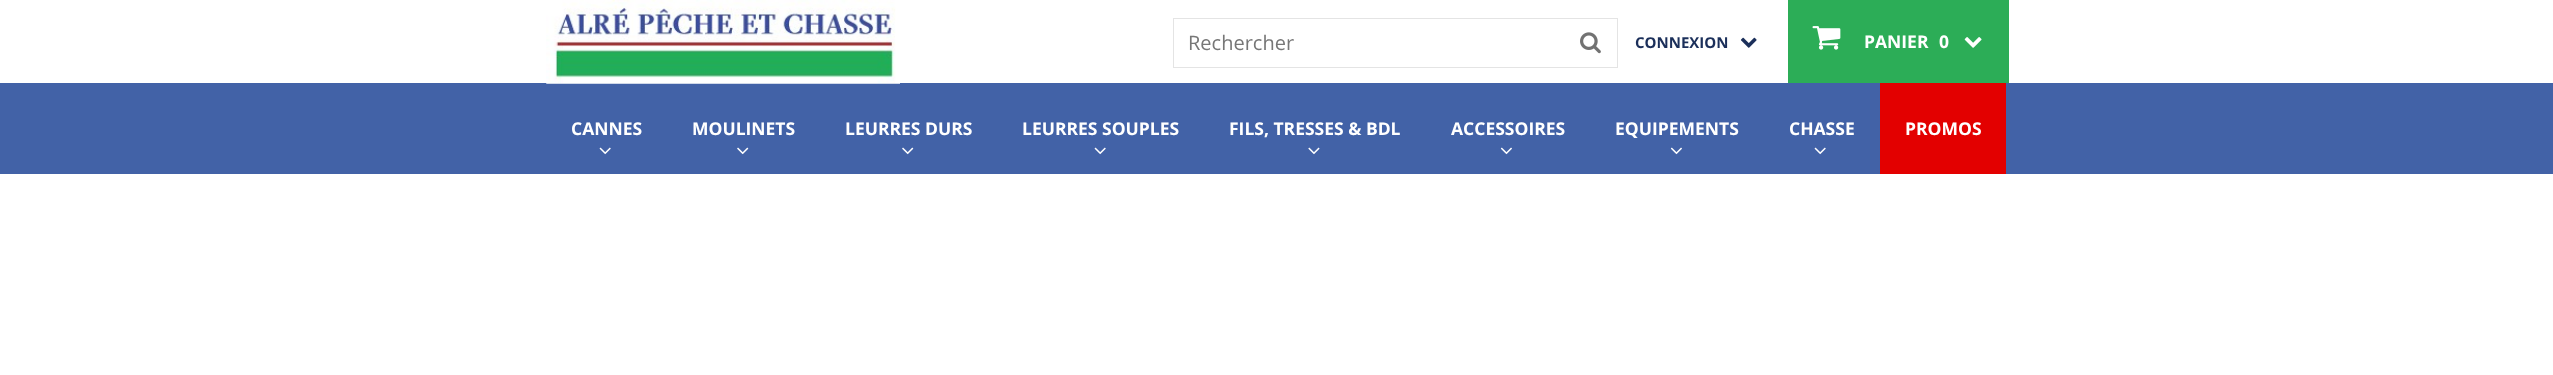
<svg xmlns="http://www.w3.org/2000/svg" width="2553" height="375">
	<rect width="100%" height="100%" fill="#FFFFFF" />
	<rect x="0" y="83" width="2553" height="91" fill="#4262A7" />
	<image x="546" y="0" width="354" height="84" href="assets/img1.png" />
	<rect x="1173.5" y="18.5" width="444" height="49" fill="none" stroke="#E4E4E4" />
	<text x="1188" y="50" font-family="Open Sans" font-size="20" fill="#777777">Rechercher</text>
	<image x="1580" y="32" width="21" height="22" href="assets/img2.png" />
	<text x="1635" y="48" font-family="Open Sans" font-size="15" font-weight="700" fill="#1B2F5A">CONNEXION</text>
	<image x="1740" y="37" width="17" height="11" href="assets/img3.png" />
	<rect x="1788" y="0" width="221" height="83" fill="#2CAD57" />
	<image x="1812" y="26" width="29" height="24" href="assets/img4.png" />
	<g font-family="Open Sans" font-size="17.5" font-weight="700" fill="#FFFFFF">
		<text x="1864" y="48">PANIER</text>
		<text x="1939" y="48">0</text>
	</g>
	<image x="1964" y="37" width="18" height="11" href="assets/img5.png" />
	<text x="571" y="135" font-family="Open Sans" font-size="17.5" font-weight="700" fill="#FFFFFF">CANNES</text>
	<image x="599" y="147" width="12" height="8" href="assets/img6.png" />
	<text x="692" y="135" font-family="Open Sans" font-size="17.5" font-weight="700" fill="#FFFFFF">MOULINETS</text>
	<image x="737" y="147" width="12" height="8" href="assets/img7.png" />
	<text x="845" y="135" font-family="Open Sans" font-size="17.5" font-weight="700" fill="#FFFFFF">LEURRES DURS</text>
	<image x="902" y="147" width="12" height="8" href="assets/img7.png" />
	<text x="1022" y="135" font-family="Open Sans" font-size="17.5" font-weight="700" fill="#FFFFFF">LEURRES SOUPLES</text>
	<image x="1094" y="147" width="12" height="8" href="assets/img6.png" />
	<text x="1229" y="135" font-family="Open Sans" font-size="17.5" font-weight="700" fill="#FFFFFF">FILS, TRESSES &amp; BDL</text>
	<image x="1308" y="147" width="12" height="8" href="assets/img8.png" />
	<text x="1451" y="135" font-family="Open Sans" font-size="17.5" font-weight="700" fill="#FFFFFF">ACCESSOIRES</text>
	<image x="1500" y="147" width="12" height="8" href="assets/img9.png" />
	<text x="1615" y="135" font-family="Open Sans" font-size="17.5" font-weight="700" fill="#FFFFFF">EQUIPEMENTS</text>
	<image x="1670" y="147" width="12" height="8" href="assets/img9.png" />
	<text x="1789" y="135" font-family="Open Sans" font-size="17.5" font-weight="700" fill="#FFFFFF">CHASSE</text>
	<image x="1814" y="147" width="12" height="8" href="assets/img6.png" />
	<rect x="1880" y="83" width="126" height="91" fill="#E30000" />
	<text x="1905" y="135" font-family="Open Sans" font-size="17.5" font-weight="700" fill="#FFFFFF">PROMOS</text>
</svg>
